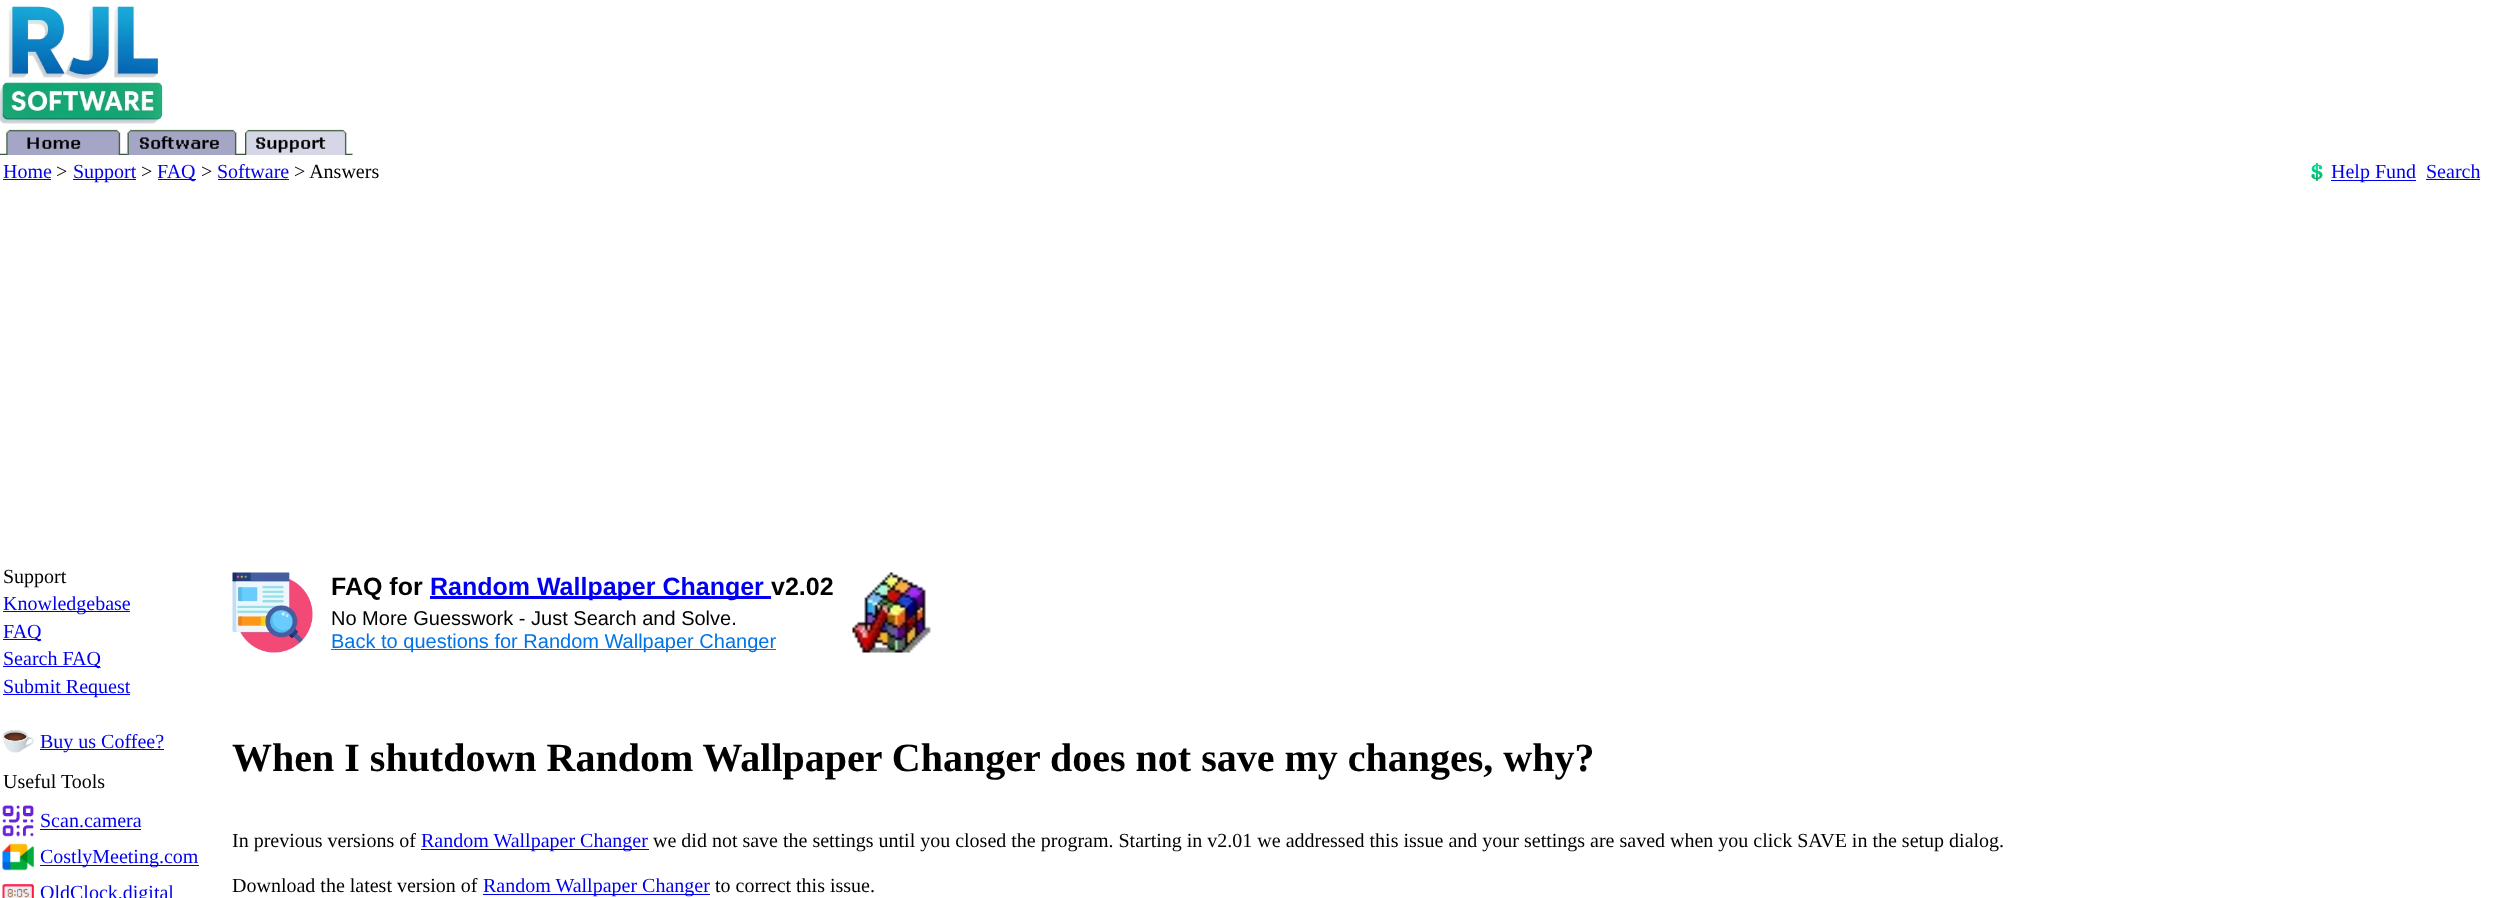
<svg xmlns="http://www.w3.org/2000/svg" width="2502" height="898">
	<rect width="100%" height="100%" fill="#FFFFFF" />
	<image x="0" y="6" width="163" height="118" href="assets/img1.png" />
	<image x="0" y="123" width="128" height="32" href="assets/img2.png" />
	<image x="127" y="123" width="118" height="32" href="assets/img3.png" />
	<image x="245" y="129" width="108" height="26" href="assets/img4.png" />
	<text x="3" y="178" font-family="Liberation Serif" font-size="20" fill="#0000EE">Home</text>
	<rect x="3" y="179" width="48" height="1" fill="#0000EE" />
	<text x="56" y="178" font-family="Liberation Serif" font-size="20" fill="#000000">&gt;</text>
	<rect x="73" y="179" width="63" height="1" fill="#0000EE" />
	<text x="73" y="178" font-family="Liberation Serif" font-size="20" fill="#0000EE">Support</text>
	<text x="141" y="178" font-family="Liberation Serif" font-size="20" fill="#000000">&gt;</text>
	<rect x="158" y="179" width="38" height="1" fill="#0000EE" />
	<text x="157" y="178" font-family="Liberation Serif" font-size="20" fill="#0000EE">FAQ</text>
	<text x="201" y="178" font-family="Liberation Serif" font-size="20" fill="#000000">&gt;</text>
	<text x="217" y="178" font-family="Liberation Serif" font-size="20" fill="#0000EE">Software</text>
	<rect x="218" y="179" width="71" height="1" fill="#0000EE" />
	<text x="294" y="178" font-family="Liberation Serif" font-size="20" fill="#000000">&gt; Answers</text>
	<image x="2311" y="163" width="12" height="18" href="assets/img5.png" />
	<rect x="2331" y="180" width="85" height="1" fill="#0000EE" />
	<g font-family="Liberation Serif" font-size="20" fill="#0000EE">
		<text x="2331" y="178">Help Fund</text>
		<text x="2426" y="178">Search</text>
	</g>
	<rect x="2426" y="179" width="54" height="1" fill="#0000EE" />
	<text x="3" y="583" font-family="Liberation Serif" font-size="20" fill="#000000">Support</text>
	<rect x="3" y="611" width="127" height="1" fill="#0000EE" />
	<text x="3" y="610" font-family="Liberation Serif" font-size="20" fill="#0000EE">Knowledgebase</text>
	<rect x="3" y="639" width="38" height="1" fill="#0000EE" />
	<text x="3" y="638" font-family="Liberation Serif" font-size="20" fill="#0000EE">FAQ</text>
	<rect x="3" y="666" width="97" height="1" fill="#0000EE" />
	<text x="3" y="665" font-family="Liberation Serif" font-size="20" fill="#0000EE">Search FAQ</text>
	<rect x="3" y="694" width="127" height="1" fill="#0000EE" />
	<text x="3" y="693" font-family="Liberation Serif" font-size="20" fill="#0000EE">Submit Request</text>
	<image x="2" y="730" width="32" height="23" href="assets/img6.png" />
	<rect x="40" y="749" width="124" height="1" fill="#0000EE" />
	<text x="40" y="748" font-family="Liberation Serif" font-size="20" fill="#0000EE">Buy us Coffee?</text>
	<text x="3" y="788" font-family="Liberation Serif" font-size="20" fill="#000000">Useful Tools</text>
	<image x="2" y="805" width="32" height="32" href="assets/img7.png" />
	<text x="40" y="827" font-family="Liberation Serif" font-size="20" fill="#0000EE">Scan.camera</text>
	<rect x="40" y="829" width="101" height="1" fill="#0000EE" />
	<image x="2" y="843" width="32" height="28" href="assets/img8.png" />
	<rect x="40" y="865" width="159" height="1" fill="#0000EE" />
	<text x="40" y="863" font-family="Liberation Serif" font-size="20" fill="#0000EE">CostlyMeeting.com</text>
	<image x="2" y="884" width="32" height="14" href="assets/img9.png" />
	<text x="40" y="899" font-family="Liberation Serif" font-size="20" fill="#0000EE">OldClock.digital</text>
	<image x="232" y="572" width="81" height="81" href="assets/img10.png" />
	<text x="331" y="595" font-family="Liberation Sans" font-size="25" font-weight="700" fill="#000000">FAQ for</text>
	<rect x="430" y="596" width="341" height="3" fill="#0000EE" />
	<text x="430" y="595" font-family="Liberation Sans" font-size="25" font-weight="700" fill="#0000EE">Random Wallpaper Changer</text>
	<text x="771" y="595" font-family="Liberation Sans" font-size="25" font-weight="700" fill="#000000">v2.02</text>
	<text x="331" y="625" font-family="Liberation Sans" font-size="20" fill="#000000">No More Guesswork - Just Search and Solve.</text>
	<rect x="331" y="649" width="445" height="1" fill="#0073E6" />
	<text x="331" y="648" font-family="Liberation Sans" font-size="20" fill="#0073E6">Back to questions for Random Wallpaper Changer</text>
	<image x="852" y="572" width="79" height="81" href="assets/img11.png" />
	<text x="232" y="771" font-family="Liberation Serif" font-size="40" font-weight="700" fill="#000000">When I shutdown Random Wallpaper Changer does not save my changes, why?</text>
	<text x="232" y="847" font-family="Liberation Serif" font-size="20" fill="#000000">In previous versions of</text>
	<rect x="421" y="849" width="228" height="1" fill="#0000EE" />
	<text x="421" y="847" font-family="Liberation Serif" font-size="20" fill="#0000EE">Random Wallpaper Changer</text>
	<g font-family="Liberation Serif" font-size="20" fill="#000000">
		<text x="653" y="847">we did not save the settings until you closed the program. Starting in v2.01 we addressed this issue and your settings are saved when you click SAVE in the setup dialog.</text>
		<text x="232" y="892">Download the latest version of</text>
	</g>
	<rect x="483" y="894" width="227" height="1" fill="#0000EE" />
	<text x="483" y="892" font-family="Liberation Serif" font-size="20" fill="#0000EE">Random Wallpaper Changer</text>
	<text x="715" y="892" font-family="Liberation Serif" font-size="20" fill="#000000">to correct this issue.</text>
</svg>
